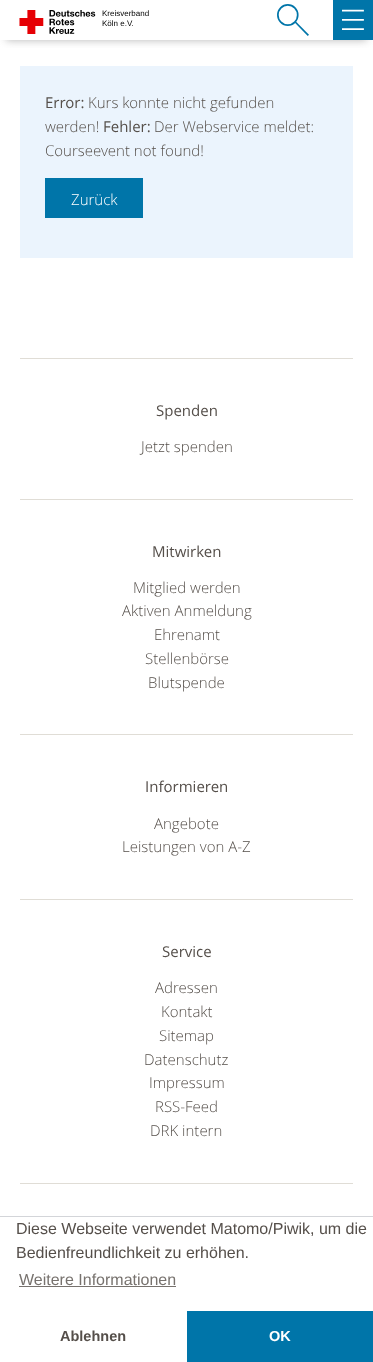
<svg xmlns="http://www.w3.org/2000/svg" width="373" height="1362">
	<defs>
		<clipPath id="clip1"><rect x="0" y="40" width="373" height="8" /></clipPath>
	</defs>
	<rect width="100%" height="100%" fill="#FFFFFF" />
	<g clip-path="url(#clip1)">
		<rect x="6" y="12" width="361" height="28" fill="#B4B4B4" filter="blur(4px)" />
	</g>
	<image x="19" y="10" width="77" height="24" href="assets/img1.png" />
	<g font-family="Liberation Sans" font-size="8" fill="#000000">
		<text x="102" y="16">Kreisverband</text>
		<text x="102" y="26">Köln e.V.</text>
	</g>
	<rect x="333" y="0" width="40" height="40" fill="#0075A9" />
	<image x="342" y="9" width="22" height="21" href="assets/img2.png" />
	<image x="277" y="4" width="32" height="32" href="assets/img3.png" />
	<rect x="20" y="66" width="333" height="192" fill="#EBF4FD" />
	<text x="45" y="108" font-family="Open Sans" font-size="15" fill="#554F4A">Error:</text>
	<g font-family="Open Sans" font-size="15" font-weight="300" fill="#554F4A">
		<text x="88" y="108">Kurs konnte nicht gefunden</text>
		<text x="45" y="132">werden!</text>
	</g>
	<text x="103" y="132" font-family="Open Sans" font-size="15" fill="#554F4A">Fehler:</text>
	<g font-family="Open Sans" font-size="15" font-weight="300" fill="#554F4A">
		<text x="154" y="132">Der Webservice meldet:</text>
		<text x="45" y="156">Courseevent not found!</text>
	</g>
	<rect x="45" y="178" width="98" height="40" fill="#0075A9" />
	<text x="71" y="205" font-family="Open Sans" font-size="15" font-weight="300" fill="#FFFFFF">Zurück</text>
	<rect x="20" y="358" width="333" height="1" fill="#E0DDD6" />
	<text x="156" y="416" font-family="Open Sans" font-size="15" fill="#554F4A">Spenden</text>
	<text x="141" y="452" font-family="Open Sans" font-size="15" font-weight="300" fill="#554F4A">Jetzt spenden</text>
	<rect x="20" y="499" width="333" height="1" fill="#E0DDD6" />
	<text x="152" y="557" font-family="Open Sans" font-size="15" fill="#554F4A">Mitwirken</text>
	<g font-family="Open Sans" font-size="15" font-weight="300" fill="#554F4A">
		<text x="133" y="593">Mitglied werden</text>
		<text x="122" y="616">Aktiven Anmeldung</text>
		<text x="154" y="640">Ehrenamt</text>
		<text x="145" y="664">Stellenbörse</text>
		<text x="148" y="688">Blutspende</text>
	</g>
	<rect x="20" y="734" width="333" height="1" fill="#E0DDD6" />
	<text x="145" y="792" font-family="Open Sans" font-size="15" fill="#554F4A">Informieren</text>
	<g font-family="Open Sans" font-size="15" font-weight="300" fill="#554F4A">
		<text x="154" y="829">Angebote</text>
		<text x="122" y="852">Leistungen von A-Z</text>
	</g>
	<rect x="20" y="899" width="333" height="1" fill="#E0DDD6" />
	<text x="162" y="957" font-family="Open Sans" font-size="15" fill="#554F4A">Service</text>
	<g font-family="Open Sans" font-size="15" font-weight="300" fill="#554F4A">
		<text x="155" y="993">Adressen</text>
		<text x="161" y="1017">Kontakt</text>
		<text x="159" y="1041">Sitemap</text>
		<text x="144" y="1065">Datenschutz</text>
		<text x="149" y="1088">Impressum</text>
		<text x="155" y="1112">RSS-Feed</text>
		<text x="150" y="1136">DRK intern</text>
	</g>
	<rect x="20" y="1183" width="333" height="1" fill="#E0DDD6" />
	<rect x="0" y="1216" width="373" height="1" fill="#D3D5D9" />
	<g font-family="Liberation Sans" font-size="16" fill="#554F4A">
		<text x="16" y="1234">Diese Webseite verwendet Matomo/Piwik, um die</text>
		<text x="16" y="1258">Bedienfreundlichkeit zu erhöhen.</text>
	</g>
	<text x="19" y="1285" font-family="Liberation Sans" font-size="16" fill="#77726E">Weitere Informationen</text>
	<rect x="19" y="1286" width="157" height="1" fill="#77726E" />
	<text x="60" y="1341" font-family="Liberation Sans" font-size="14.5" font-weight="700" fill="#554F4A">Ablehnen</text>
	<rect x="187" y="1311" width="186" height="51" fill="#0075A9" />
	<text x="269" y="1341" font-family="Liberation Sans" font-size="14.5" font-weight="700" fill="#FFFFFF">OK</text>
</svg>
